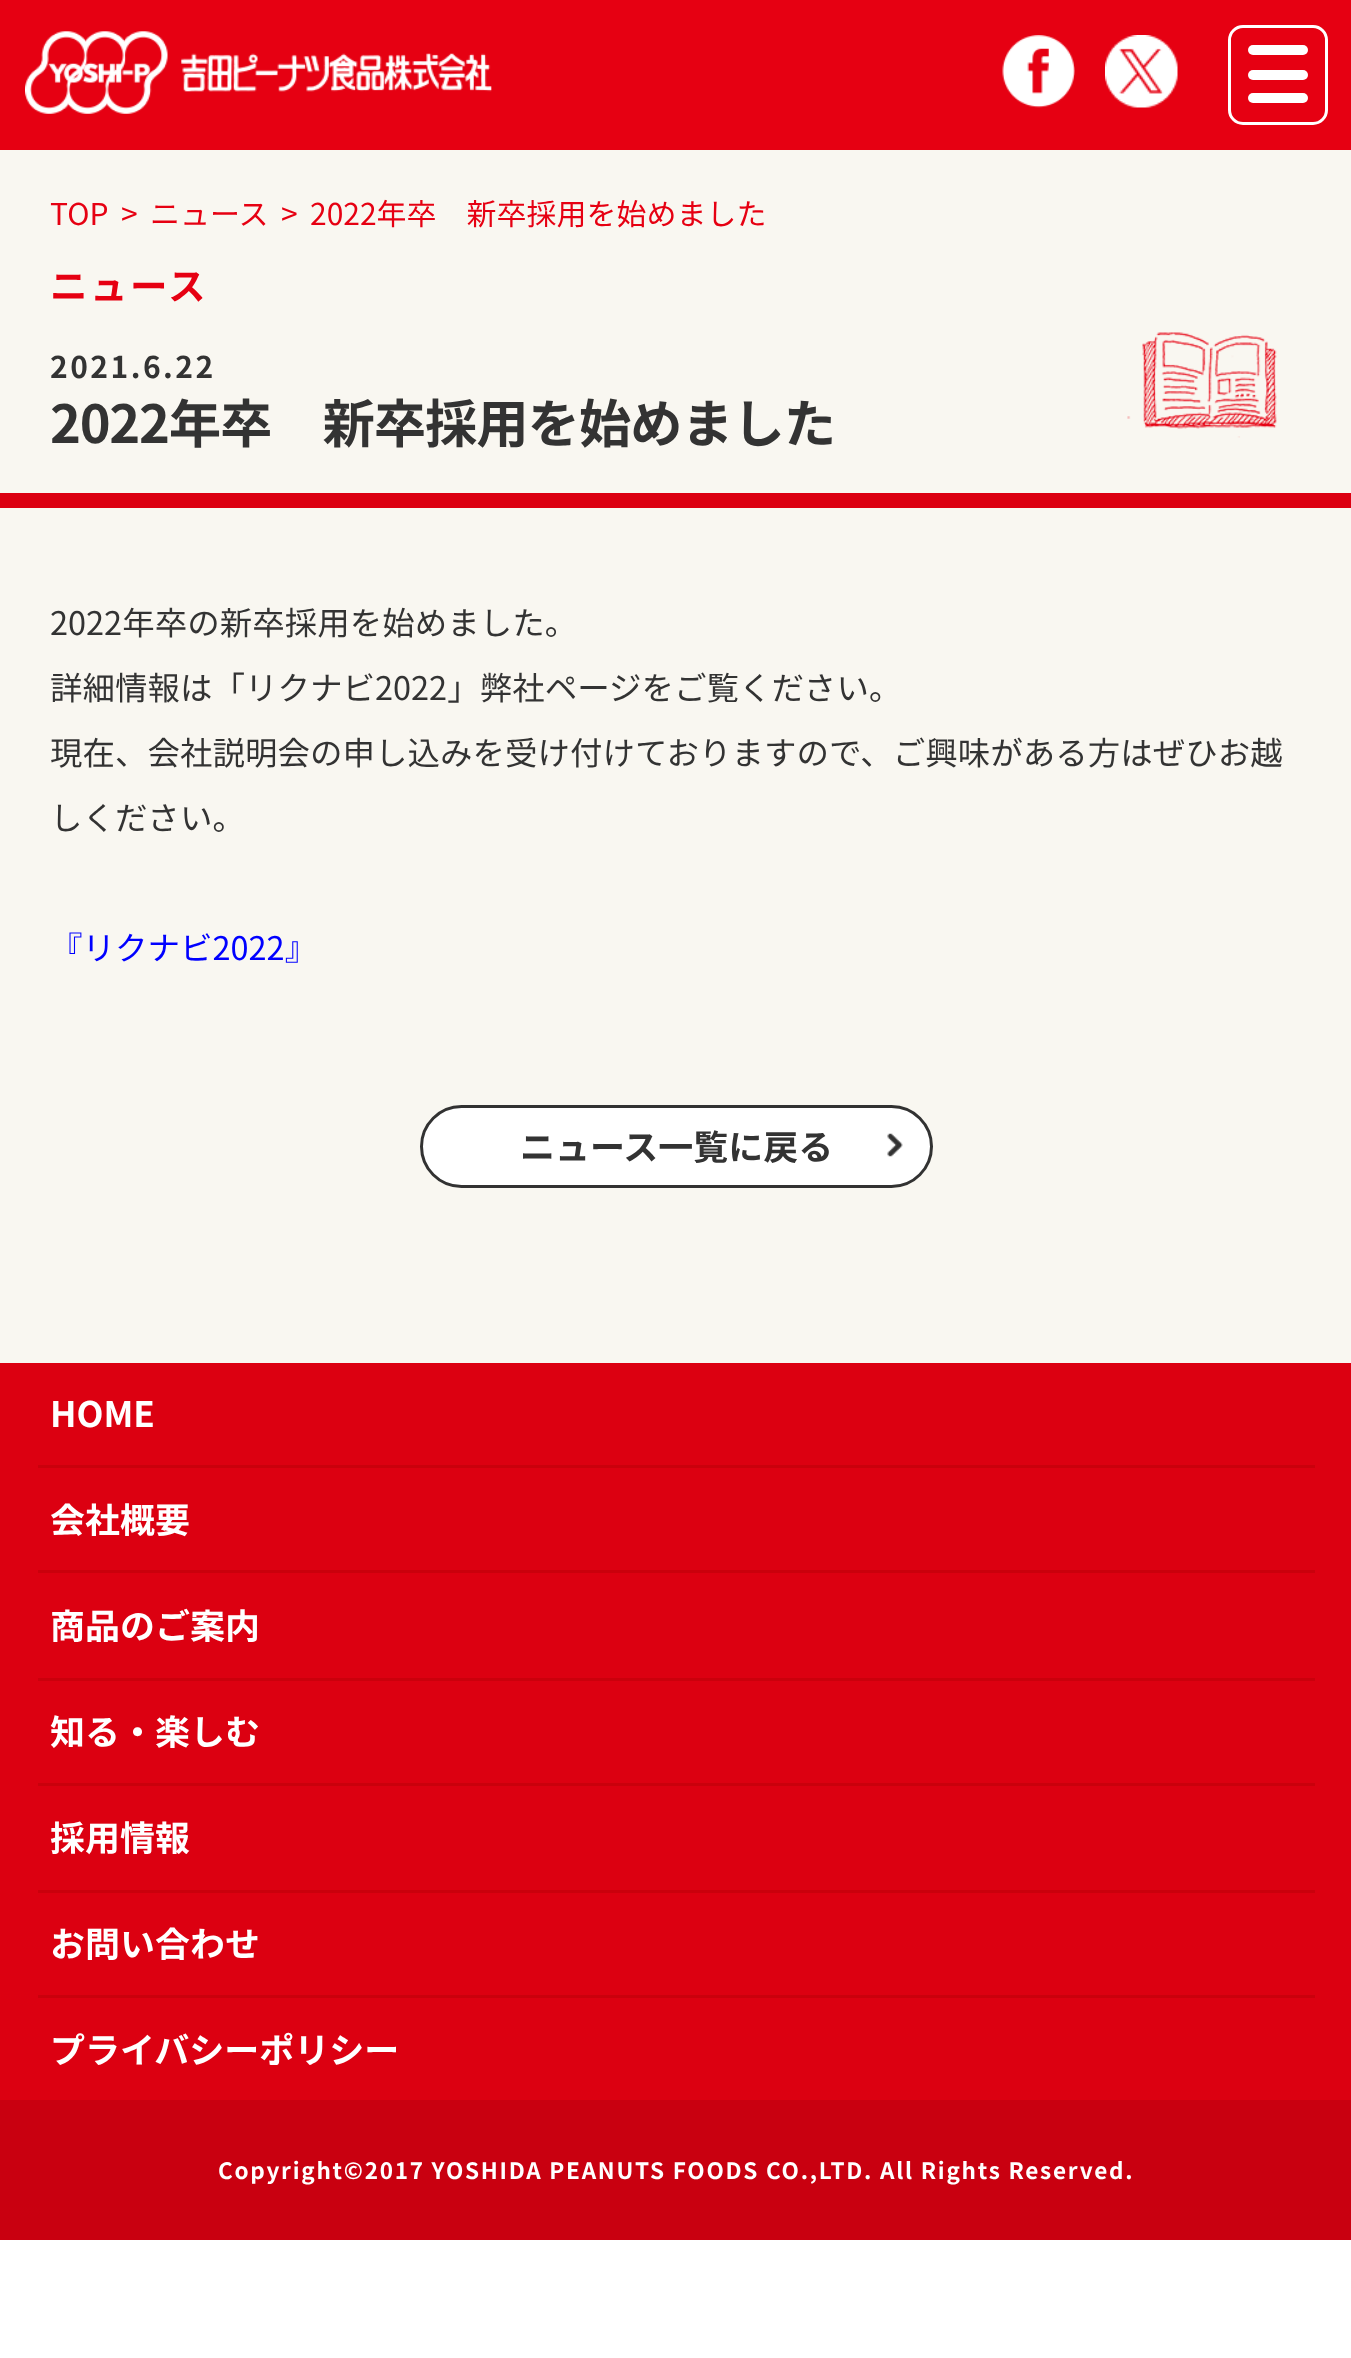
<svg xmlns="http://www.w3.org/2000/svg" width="1351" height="2358">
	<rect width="100%" height="100%" fill="#FFFFFF" />
	<rect x="0" y="150" width="1351" height="1213" fill="#F9F7F1" />
	<rect x="0" y="0" width="1351" height="150" fill="#E60012" />
	<image x="25" y="31" width="467" height="83" href="assets/img1.png" />
	<image x="1002" y="35" width="73" height="73" href="assets/img2.png" />
	<image x="1105" y="35" width="73" height="73" href="assets/img3.png" />
	<rect x="1229.5" y="26.5" width="97" height="97" rx="13.5" fill="none" stroke="#FFFFFF" stroke-width="3" />
	<rect x="1248" y="45" width="60" height="10" rx="5" fill="#FFFFFF" />
	<rect x="1248" y="70" width="60" height="10" rx="5" fill="#FFFFFF" />
	<rect x="1248" y="93" width="60" height="10" rx="5" fill="#FFFFFF" />
	<g font-family="Noto Sans JP" font-size="30" fill="#E60012">
		<text x="50" y="225">TOP</text>
		<text x="121" y="225">&gt;</text>
		<text x="150" y="225">ニュース</text>
		<text x="281" y="225">&gt;</text>
		<text x="310" y="225">2022年卒　新卒採用を始めました</text>
	</g>
	<rect x="0" y="493" width="1351" height="15" fill="#DC0011" />
	<text x="50" y="300" font-family="Noto Sans JP" font-size="37.5" font-weight="700" letter-spacing="2.5" fill="#E60012">ニュース</text>
	<text x="50" y="378" font-family="Noto Sans JP" font-size="30" font-weight="700" letter-spacing="2.5" fill="#333333">2021.6.22</text>
	<image x="1127" y="332" width="150" height="106" href="assets/img4.png" />
	<text x="50" y="443" font-family="Noto Sans JP" font-size="52.5" font-weight="700" letter-spacing="-1.25" fill="#333333">2022年卒　新卒採用を始めました</text>
	<g font-family="Noto Sans JP" font-size="32.5" fill="#333333">
		<text x="50" y="635">2022年卒の新卒採用を始めました。</text>
		<text x="50" y="700">詳細情報は「リクナビ2022」弊社ページをご覧ください。</text>
		<text x="50" y="765">現在、会社説明会の申し込みを受け付けておりますので、ご興味がある方はぜひお越</text>
		<text x="50" y="830">しください。</text>
	</g>
	<text x="50" y="960" font-family="Noto Sans JP" font-size="32.5" fill="#0000FF">『リクナビ2022』</text>
	<rect x="421.5" y="1106.5" width="510" height="80" rx="40" fill="#FFFFFF" stroke="#323232" stroke-width="3" />
	<text x="520" y="1160" font-family="Noto Sans JP" font-size="35" font-weight="700" fill="#333333">ニュース一覧に戻る</text>
	<image x="887" y="1133" width="16" height="24" href="assets/img5.png" />
	<rect x="0" y="1363" width="1351" height="737" fill="#DC0011" />
	<rect x="38" y="1465" width="1277" height="3" fill="#CA000C" />
	<text x="50" y="1427" font-family="Noto Sans JP" font-size="35" font-weight="700" fill="#FFFFFF">HOME</text>
	<rect x="38" y="1570" width="1277" height="3" fill="#CA000C" />
	<text x="50" y="1533" font-family="Noto Sans JP" font-size="35" font-weight="700" fill="#FFFFFF">会社概要</text>
	<rect x="38" y="1678" width="1277" height="3" fill="#CA000C" />
	<text x="50" y="1639" font-family="Noto Sans JP" font-size="35" font-weight="700" fill="#FFFFFF">商品のご案内</text>
	<rect x="38" y="1783" width="1277" height="3" fill="#CA000C" />
	<text x="50" y="1745" font-family="Noto Sans JP" font-size="35" font-weight="700" fill="#FFFFFF">知る・楽しむ</text>
	<rect x="38" y="1890" width="1277" height="3" fill="#CA000C" />
	<text x="50" y="1851" font-family="Noto Sans JP" font-size="35" font-weight="700" fill="#FFFFFF">採用情報</text>
	<rect x="38" y="1995" width="1277" height="3" fill="#CA000C" />
	<g font-family="Noto Sans JP" font-size="35" font-weight="700" fill="#FFFFFF">
		<text x="50" y="1957">お問い合わせ</text>
		<text x="50" y="2063">プライバシーポリシー</text>
	</g>
	<rect x="0" y="2100" width="1351" height="140" fill="#C90010" />
	<text x="218" y="2179" font-family="Noto Sans JP" font-size="22.5" font-weight="700" letter-spacing="1.75" fill="#FFFFFF">Copyright©2017 YOSHIDA PEANUTS FOODS CO.,LTD. All Rights Reserved.</text>
</svg>
